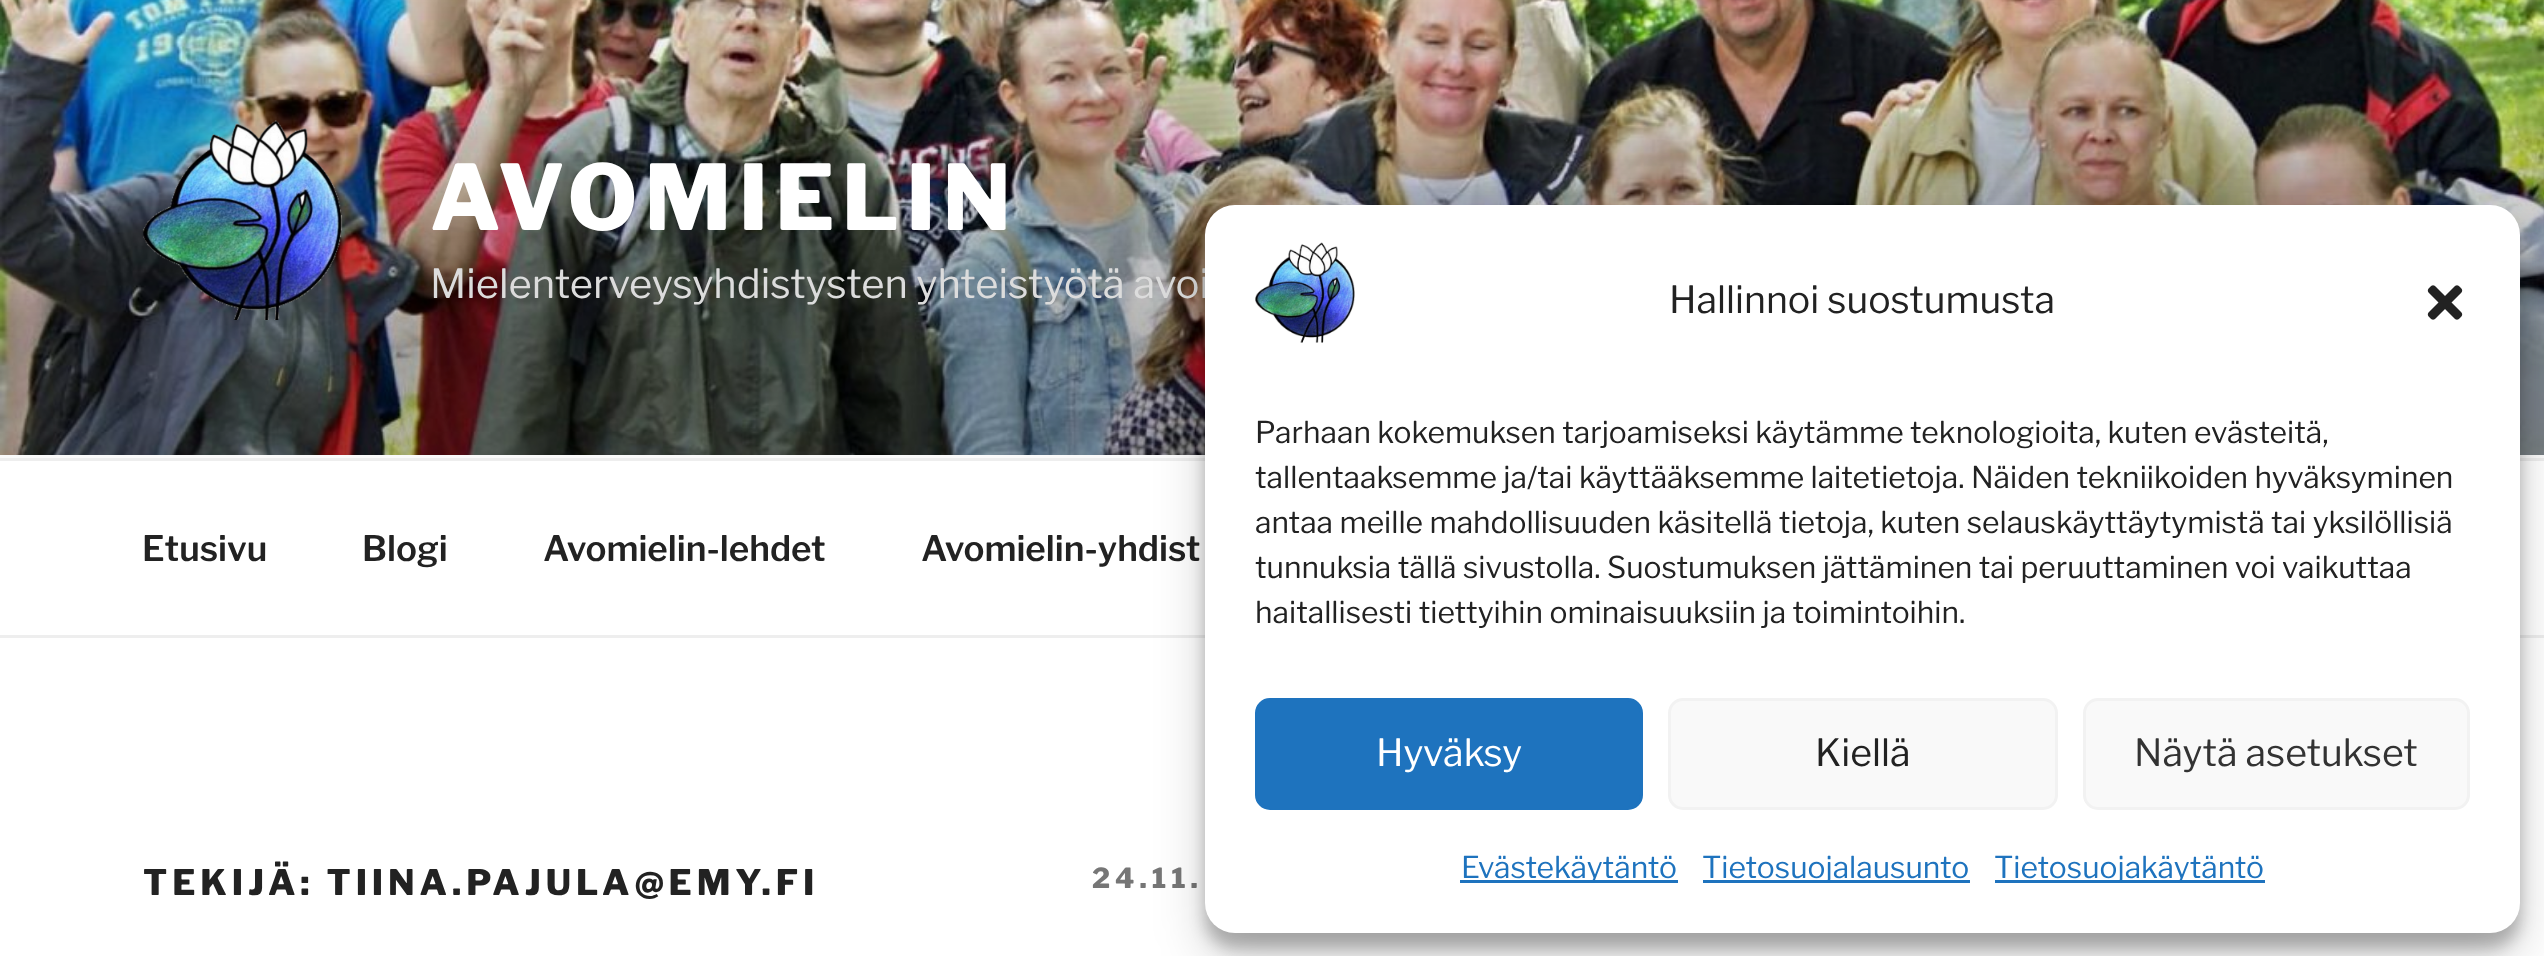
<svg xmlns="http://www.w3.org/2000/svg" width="2544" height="956">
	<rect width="100%" height="100%" fill="#FFFFFF" />
	<rect x="0" y="455" width="2544" height="3" fill="#FAFAFA" />
	<image x="0" y="0" width="2544" height="455" href="assets/img1.png" />
	<image x="142" y="120" width="201" height="200" href="assets/img2.png" />
	<text x="430" y="230" font-family="Libre Franklin" font-size="90" font-weight="100" letter-spacing="7.25" fill="#FFFFFF">AVOMIELIN</text>
	<text x="430" y="298" font-family="'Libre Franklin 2'" font-size="40" font-weight="100" fill="#DCDCDC">Mielenterveysyhdistysten yhteistyötä avoi</text>
	<rect x="0" y="458" width="2544" height="3" fill="#EEEEEE" />
	<rect x="0" y="635" width="2544" height="3" fill="#EEEEEE" />
	<g font-family="'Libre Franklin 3'" font-size="35" font-weight="100" fill="#222222">
		<text x="142" y="561">Etusivu</text>
		<text x="362" y="561">Blogi</text>
		<text x="543" y="561">Avomielin-lehdet</text>
		<text x="921" y="561">Avomielin-yhdist</text>
	</g>
	<text x="143" y="895" font-family="Libre Franklin" font-size="35" font-weight="100" letter-spacing="4.9" fill="#222222">TEKIJÄ: TIINA.PAJULA@EMY.FI</text>
	<text x="1092" y="888" font-family="Libre Franklin" font-size="27.5" font-weight="100" letter-spacing="5" fill="#767676">24.11.</text>
	<rect x="1205" y="220" width="1315" height="728" rx="30" fill="#000000" fill-opacity="0.23" filter="blur(7.5px)" />
	<rect x="1205" y="230" width="1315" height="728" rx="30" fill="#000000" fill-opacity="0.19" filter="blur(25px)" />
	<rect x="1205" y="205" width="1315" height="728" rx="30" fill="#FFFFFF" />
	<image x="1255" y="242" width="100" height="101" href="assets/img3.png" />
	<text x="1669" y="313" font-family="'Libre Franklin 2'" font-size="37.5" font-weight="100" fill="#222222">Hallinnoi suostumusta</text>
	<image x="2427" y="285" width="36" height="35" href="assets/img4.png" />
	<g font-family="'Libre Franklin 2'" font-size="30" font-weight="100" fill="#222222">
		<text x="1255" y="443">Parhaan kokemuksen tarjoamiseksi käytämme teknologioita, kuten evästeitä,</text>
		<text x="1255" y="488">tallentaaksemme ja/tai käyttääksemme laitetietoja. Näiden tekniikoiden hyväksyminen</text>
		<text x="1255" y="533">antaa meille mahdollisuuden käsitellä tietoja, kuten selauskäyttäytymistä tai yksilöllisiä</text>
		<text x="1255" y="578">tunnuksia tällä sivustolla. Suostumuksen jättäminen tai peruuttaminen voi vaikuttaa</text>
		<text x="1255" y="623">haitallisesti tiettyihin ominaisuuksiin ja toimintoihin.</text>
	</g>
	<rect x="1256.5" y="699.5" width="385" height="109" rx="13.5" fill="#1E73BE" stroke="#1E73BE" stroke-width="3" />
	<text x="1376" y="766" font-family="'Libre Franklin 2'" font-size="37.5" font-weight="100" fill="#FFFFFF">Hyväksy</text>
	<rect x="1669.5" y="699.5" width="387" height="109" rx="13.5" fill="#F9F9F9" stroke="#F2F2F2" stroke-width="3" />
	<text x="1815" y="766" font-family="'Libre Franklin 2'" font-size="37.5" font-weight="100" fill="#222222">Kiellä</text>
	<rect x="2084.5" y="699.5" width="384" height="109" rx="13.5" fill="#F9F9F9" stroke="#F2F2F2" stroke-width="3" />
	<text x="2134" y="766" font-family="'Libre Franklin 2'" font-size="37.5" font-weight="100" fill="#333333">Näytä asetukset</text>
	<rect x="1460" y="880" width="218" height="3" fill="#1E73BE" />
	<text x="1461" y="878" font-family="'Libre Franklin 2'" font-size="30" font-weight="100" fill="#1E73BE">Evästekäytäntö</text>
	<rect x="1703" y="880" width="267" height="3" fill="#1E73BE" />
	<text x="1702" y="878" font-family="'Libre Franklin 2'" font-size="30" font-weight="100" fill="#1E73BE">Tietosuojalausunto</text>
	<rect x="1995" y="880" width="270" height="3" fill="#1E73BE" />
	<text x="1994" y="878" font-family="'Libre Franklin 2'" font-size="30" font-weight="100" fill="#1E73BE">Tietosuojakäytäntö</text>
</svg>
